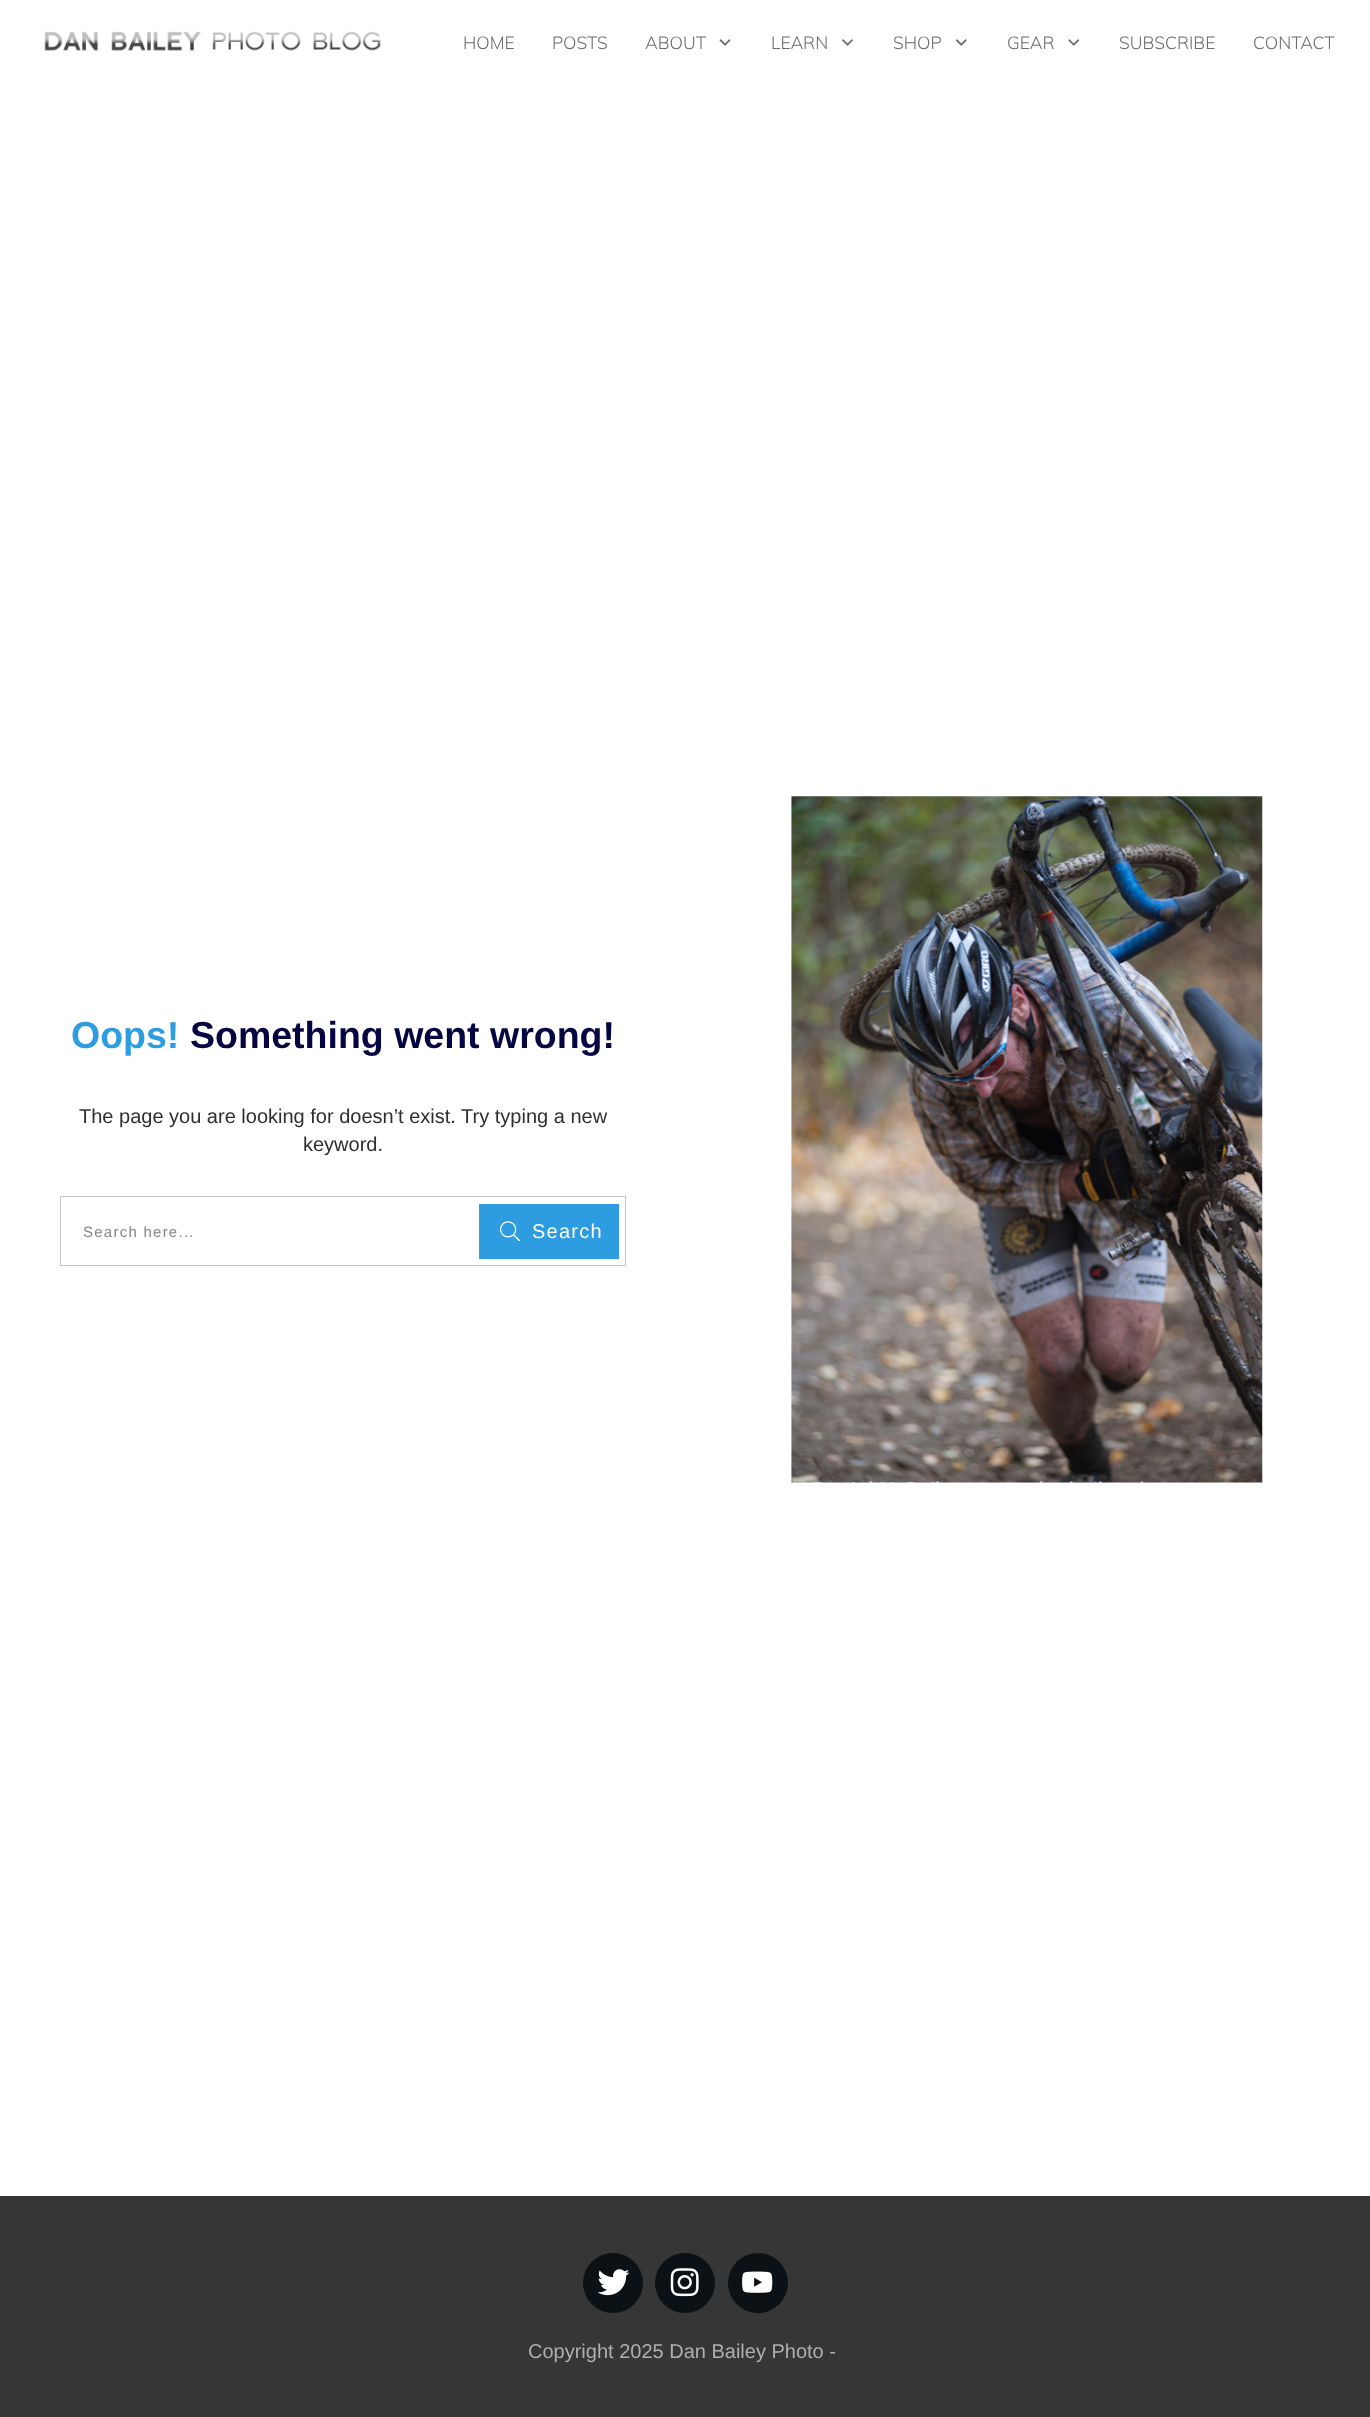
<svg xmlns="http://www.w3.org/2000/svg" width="1370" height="2417">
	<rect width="100%" height="100%" fill="#FFFFFF" />
	<image x="44" y="31" width="337" height="20" href="assets/img1.png" />
	<g font-family="Muli" font-size="17.5" font-weight="300" fill="#6A6B6C">
		<text x="463" y="49">HOME</text>
		<text x="552" y="49">POSTS</text>
		<text x="645" y="49">ABOUT</text>
	</g>
	<image x="719" y="39" width="12" height="7" href="assets/img2.png" />
	<text x="771" y="49" font-family="Muli" font-size="17.5" font-weight="300" fill="#6A6B6C">LEARN</text>
	<image x="842" y="39" width="11" height="7" href="assets/img3.png" />
	<text x="893" y="49" font-family="Muli" font-size="17.5" font-weight="300" fill="#6A6B6C">SHOP</text>
	<image x="955" y="39" width="12" height="7" href="assets/img4.png" />
	<text x="1007" y="49" font-family="Muli" font-size="17.5" font-weight="300" fill="#6A6B6C">GEAR</text>
	<image x="1068" y="39" width="12" height="7" href="assets/img5.png" />
	<g font-family="Muli" font-size="17.5" font-weight="300" fill="#6A6B6C">
		<text x="1119" y="49">SUBSCRIBE</text>
		<text x="1253" y="49">CONTACT</text>
	</g>
	<text x="71" y="1048" font-family="Liberation Sans" font-size="37.5" font-weight="700" fill="#2E9CE0">Oops!</text>
	<text x="190" y="1048" font-family="Liberation Sans" font-size="37.5" font-weight="700" fill="#050541">Something went wrong!</text>
	<g font-family="Liberation Sans" font-size="20" fill="#2F2F2F">
		<text x="79" y="1123">The page you are looking for doesn’t exist. Try typing a new</text>
		<text x="303" y="1151">keyword.</text>
	</g>
	<rect x="60.5" y="1196.5" width="565" height="69" fill="none" stroke="#C7C7C7" />
	<text x="83" y="1237" font-family="Liberation Sans" font-size="15" letter-spacing="1.25" fill="#858585">Search here...</text>
	<rect x="479" y="1204" width="140" height="55" fill="#2E9CE0" />
	<image x="500" y="1221" width="20" height="20" href="assets/img6.png" />
	<text x="532" y="1238" font-family="Liberation Sans" font-size="20" letter-spacing="1.25" fill="#FFFFFF">Search</text>
	<image x="791" y="796" width="472" height="687" href="assets/img7.png" />
	<rect x="0" y="2196" width="1370" height="221" fill="#363636" />
	<circle cx="613" cy="2283" r="30" fill="#0C1115" />
	<image x="598" y="2269" width="31" height="27" href="assets/img8.png" />
	<circle cx="685" cy="2283" r="30" fill="#0C1115" />
	<image x="670" y="2268" width="29" height="29" href="assets/img9.png" />
	<circle cx="758" cy="2283" r="30" fill="#0C1115" />
	<image x="742" y="2271" width="31" height="22" href="assets/img10.png" />
	<text x="528" y="2358" font-family="Liberation Sans" font-size="20" fill="#AFAFAF">Copyright 2025 Dan Bailey Photo -</text>
</svg>
